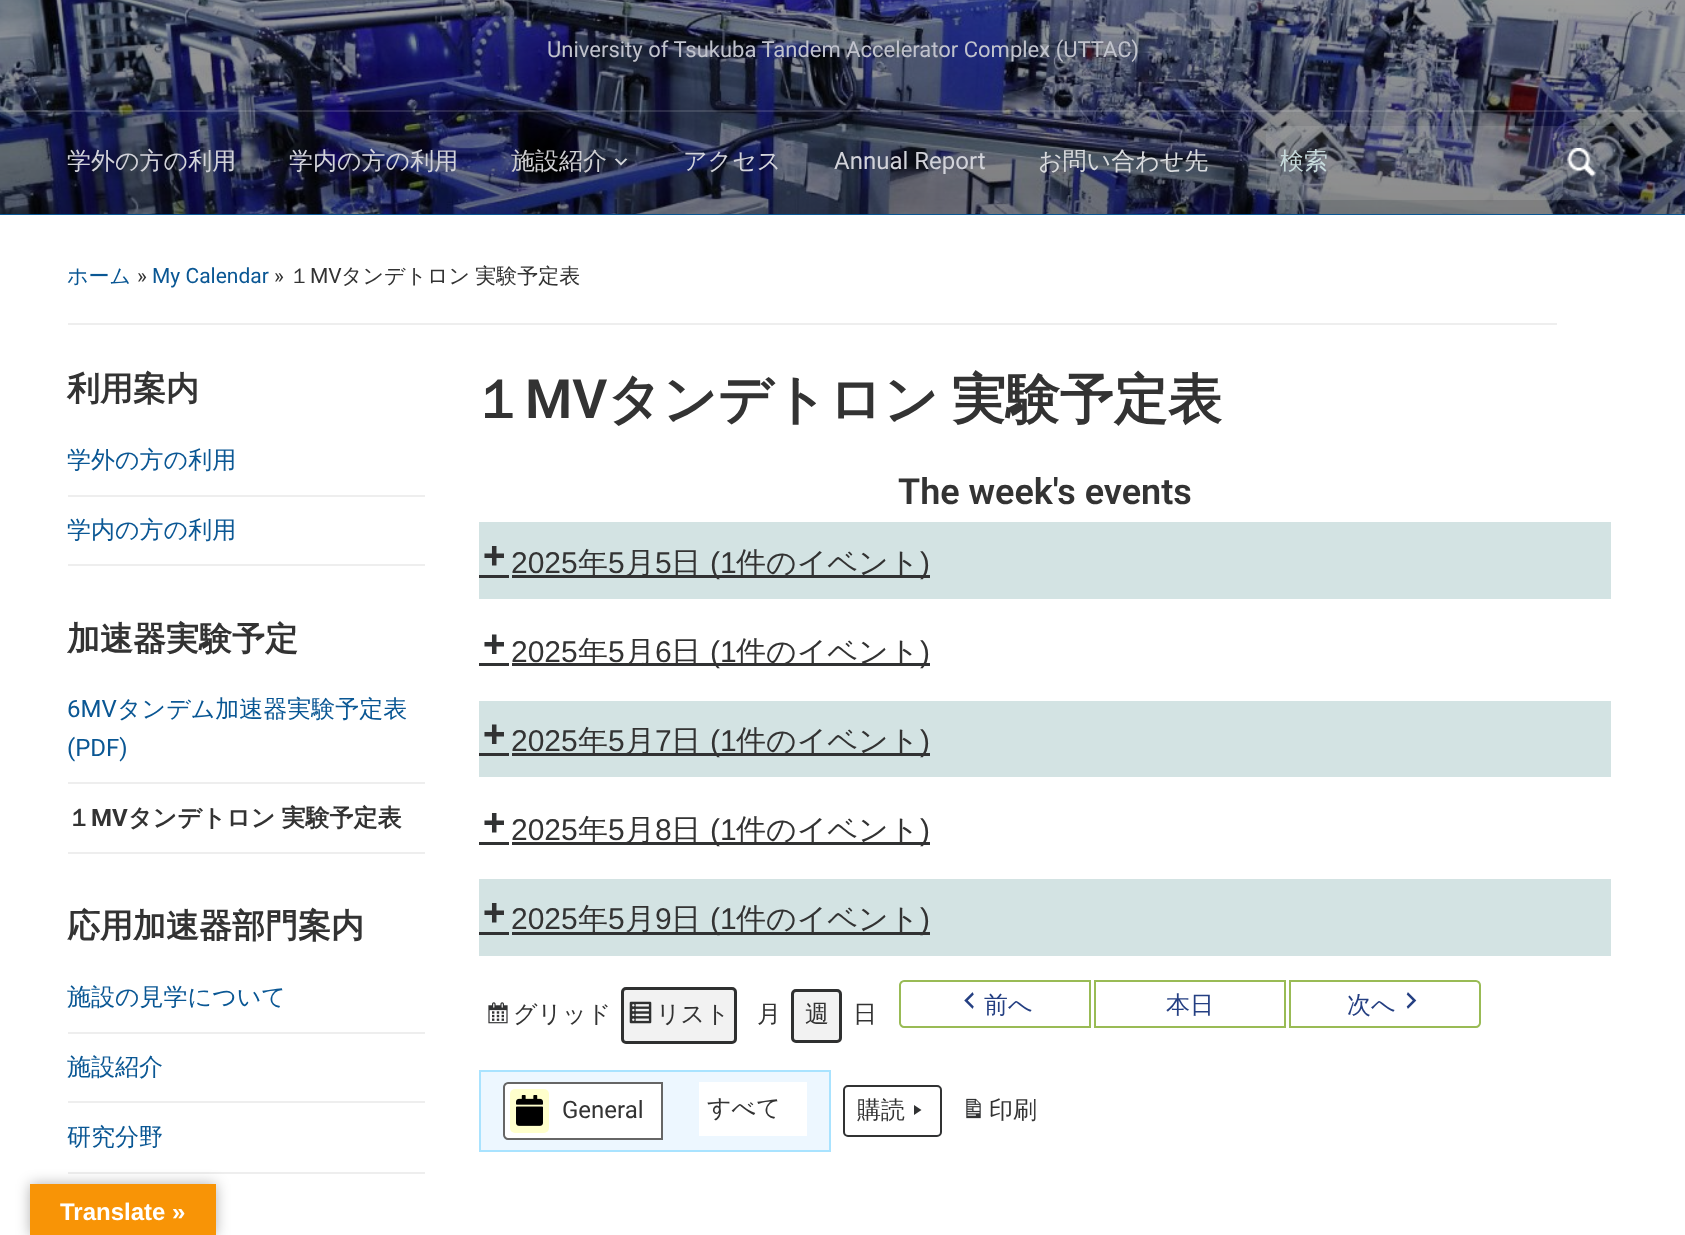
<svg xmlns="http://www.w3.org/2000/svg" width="1685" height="1235">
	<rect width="100%" height="100%" fill="#FFFFFF" />
	<rect x="0" y="214" width="1685" height="1" fill="#0A5794" />
	<image x="0" y="0" width="1685" height="214" href="assets/img1.png" />
	<text x="547" y="57" font-family="Roboto" font-size="22" fill="#C1C3CD">University of Tsukuba Tandem Accelerator Complex (UTTAC)</text>
	<rect x="0" y="110" width="1685" height="2" fill="#FFFFFF" fill-opacity="0.13" />
	<g font-family="WenQuanYi Zen Hei" font-size="24" font-weight="500" fill="#D2D3DA">
		<text x="67" y="169">学外の方の利用</text>
		<text x="289" y="169">学内の方の利用</text>
	</g>
	<text x="511" y="169" font-family="WenQuanYi Zen Hei" font-size="24" font-weight="500" fill="#CFCFD2">施設紹介</text>
	<image x="614" y="158" width="14" height="8" href="assets/img2.png" />
	<text x="683" y="169" font-family="WenQuanYi Zen Hei" font-size="24" font-weight="500" fill="#D2D3DA">アクセス</text>
	<text x="834" y="169" font-family="Roboto" font-size="24" fill="#D2D3DA">Annual Report</text>
	<text x="1038" y="169" font-family="WenQuanYi Zen Hei" font-size="24" font-weight="500" fill="#D9DBDE">お問い合わせ先</text>
	<rect x="1266" y="126" width="353" height="74" rx="5" fill="#FFFFFF" fill-opacity="0.1" />
	<text x="1280" y="169" font-family="WenQuanYi Zen Hei" font-size="24" font-weight="500" fill="#C6D9DB">検索</text>
	<image x="1567" y="148" width="29" height="29" href="assets/img3.png" />
	<rect x="68" y="323" width="1489" height="2" fill="#EEEEEE" />
	<text x="67" y="283" font-family="WenQuanYi Zen Hei" font-size="21" font-weight="500" fill="#0A5794">ホーム</text>
	<text x="137" y="283" font-family="Roboto" font-size="21" fill="#333333">»</text>
	<text x="152" y="283" font-family="Roboto" font-size="21" fill="#0A5794">My Calendar</text>
	<text x="274" y="283" font-family="Roboto" font-size="21" fill="#333333">»</text>
	<text x="289" y="283" font-family="WenQuanYi Zen Hei" font-size="21" font-weight="500" fill="#333333">１</text>
	<text x="310" y="283" font-family="Roboto" font-size="21" fill="#333333">MV</text>
	<text x="341" y="283" word-spacing="-1" font-family="WenQuanYi Zen Hei" font-size="21" font-weight="500" fill="#333333">タンデトロン 実験予定表</text>
	<text x="67" y="400" font-family="WenQuanYi Zen Hei" font-size="33" font-weight="700" fill="#333333">利用案内</text>
	<rect x="68" y="495" width="357" height="2" fill="#EEEEEE" />
	<text x="67" y="468" font-family="WenQuanYi Zen Hei" font-size="24" font-weight="500" fill="#0A5794">学外の方の利用</text>
	<rect x="68" y="564" width="357" height="2" fill="#EEEEEE" />
	<text x="67" y="538" font-family="WenQuanYi Zen Hei" font-size="24" font-weight="500" fill="#0A5794">学内の方の利用</text>
	<text x="67" y="650" font-family="WenQuanYi Zen Hei" font-size="33" font-weight="700" fill="#333333">加速器実験予定</text>
	<rect x="68" y="782" width="357" height="2" fill="#EEEEEE" />
	<text x="67" y="717" font-family="Roboto" font-size="24" fill="#0A5794">6MV</text>
	<text x="117" y="717" font-family="WenQuanYi Zen Hei" font-size="24" font-weight="500" fill="#0A5794">タンデム加速器実験予定表</text>
	<text x="67" y="756" font-family="Roboto" font-size="24" fill="#0A5794">(PDF)</text>
	<rect x="68" y="852" width="357" height="2" fill="#EEEEEE" />
	<text x="67" y="826" font-family="WenQuanYi Zen Hei" font-size="24" font-weight="700" fill="#333333">１</text>
	<text x="91" y="826" font-family="Roboto" font-size="24" font-weight="700" fill="#333333">MV</text>
	<text x="128" y="826" word-spacing="-1" font-family="WenQuanYi Zen Hei" font-size="24" font-weight="700" fill="#333333">タンデトロン 実験予定表</text>
	<text x="67" y="937" font-family="WenQuanYi Zen Hei" font-size="33" font-weight="700" fill="#333333">応用加速器部門案内</text>
	<rect x="68" y="1032" width="357" height="2" fill="#EEEEEE" />
	<text x="67" y="1005" font-family="WenQuanYi Zen Hei" font-size="24" font-weight="500" fill="#0A5794">施設の見学について</text>
	<rect x="68" y="1101" width="357" height="2" fill="#EEEEEE" />
	<text x="67" y="1075" font-family="WenQuanYi Zen Hei" font-size="24" font-weight="500" fill="#0A5794">施設紹介</text>
	<rect x="68" y="1172" width="357" height="2" fill="#EEEEEE" />
	<text x="67" y="1145" font-family="WenQuanYi Zen Hei" font-size="24" font-weight="500" fill="#0A5794">研究分野</text>
	<text x="471" y="418" font-family="WenQuanYi Zen Hei" font-size="54" font-weight="700" fill="#333333">１</text>
	<text x="525" y="418" font-family="Roboto" font-size="54" font-weight="600" fill="#333333">MV</text>
	<text x="607" y="418" word-spacing="-3" font-family="WenQuanYi Zen Hei" font-size="54" font-weight="700" fill="#333333">タンデトロン 実験予定表</text>
	<text x="898" y="504" font-family="Roboto" font-size="36" font-weight="600" fill="#333333">The week's events</text>
	<rect x="479" y="522" width="1132" height="77" fill="#D3E3E3" />
	<image x="484" y="546" width="20" height="20" href="assets/img4.png" />
	<text x="511" y="573" font-family="Liberation Sans" font-size="30" fill="#333333">2025</text>
	<rect x="512" y="575" width="418" height="3" fill="#313233" />
	<text x="578" y="573" font-family="WenQuanYi Zen Hei" font-size="30" font-weight="500" fill="#333333">年</text>
	<text x="608" y="573" font-family="Liberation Sans" font-size="30" fill="#333333">5</text>
	<text x="625" y="573" font-family="WenQuanYi Zen Hei" font-size="30" font-weight="500" fill="#333333">月</text>
	<text x="655" y="573" font-family="Liberation Sans" font-size="30" fill="#333333">5</text>
	<text x="671" y="573" font-family="WenQuanYi Zen Hei" font-size="30" font-weight="500" fill="#333333">日</text>
	<text x="710" y="573" font-family="Liberation Sans" font-size="30" fill="#333333">(1</text>
	<text x="736" y="573" font-family="WenQuanYi Zen Hei" font-size="30" font-weight="500" fill="#333333">件のイベント</text>
	<text x="920" y="573" font-family="Liberation Sans" font-size="30" fill="#333333">)</text>
	<rect x="479" y="575" width="30" height="3" fill="#313233" />
	<image x="484" y="634" width="20" height="20" href="assets/img5.png" />
	<text x="511" y="662" font-family="Liberation Sans" font-size="30" fill="#333333">2025</text>
	<rect x="512" y="663" width="418" height="3" fill="#313233" />
	<text x="578" y="662" font-family="WenQuanYi Zen Hei" font-size="30" font-weight="500" fill="#333333">年</text>
	<text x="608" y="662" font-family="Liberation Sans" font-size="30" fill="#333333">5</text>
	<text x="625" y="662" font-family="WenQuanYi Zen Hei" font-size="30" font-weight="500" fill="#333333">月</text>
	<text x="655" y="662" font-family="Liberation Sans" font-size="30" fill="#333333">6</text>
	<text x="671" y="662" font-family="WenQuanYi Zen Hei" font-size="30" font-weight="500" fill="#333333">日</text>
	<text x="710" y="662" font-family="Liberation Sans" font-size="30" fill="#333333">(1</text>
	<text x="736" y="662" font-family="WenQuanYi Zen Hei" font-size="30" font-weight="500" fill="#333333">件のイベント</text>
	<text x="920" y="662" font-family="Liberation Sans" font-size="30" fill="#333333">)</text>
	<rect x="479" y="663" width="30" height="3" fill="#313233" />
	<rect x="479" y="701" width="1132" height="76" fill="#D3E3E3" />
	<image x="484" y="724" width="20" height="20" href="assets/img6.png" />
	<text x="511" y="751" font-family="Liberation Sans" font-size="30" fill="#333333">2025</text>
	<rect x="512" y="753" width="418" height="3" fill="#313233" />
	<text x="578" y="751" font-family="WenQuanYi Zen Hei" font-size="30" font-weight="500" fill="#333333">年</text>
	<text x="608" y="751" font-family="Liberation Sans" font-size="30" fill="#333333">5</text>
	<text x="625" y="751" font-family="WenQuanYi Zen Hei" font-size="30" font-weight="500" fill="#333333">月</text>
	<text x="655" y="751" font-family="Liberation Sans" font-size="30" fill="#333333">7</text>
	<text x="671" y="751" font-family="WenQuanYi Zen Hei" font-size="30" font-weight="500" fill="#333333">日</text>
	<text x="710" y="751" font-family="Liberation Sans" font-size="30" fill="#333333">(1</text>
	<text x="736" y="751" font-family="WenQuanYi Zen Hei" font-size="30" font-weight="500" fill="#333333">件のイベント</text>
	<text x="920" y="751" font-family="Liberation Sans" font-size="30" fill="#333333">)</text>
	<rect x="479" y="753" width="30" height="3" fill="#313233" />
	<image x="484" y="813" width="20" height="20" href="assets/img7.png" />
	<text x="511" y="840" font-family="Liberation Sans" font-size="30" fill="#333333">2025</text>
	<rect x="512" y="842" width="418" height="3" fill="#313233" />
	<text x="578" y="840" font-family="WenQuanYi Zen Hei" font-size="30" font-weight="500" fill="#333333">年</text>
	<text x="608" y="840" font-family="Liberation Sans" font-size="30" fill="#333333">5</text>
	<text x="625" y="840" font-family="WenQuanYi Zen Hei" font-size="30" font-weight="500" fill="#333333">月</text>
	<text x="655" y="840" font-family="Liberation Sans" font-size="30" fill="#333333">8</text>
	<text x="671" y="840" font-family="WenQuanYi Zen Hei" font-size="30" font-weight="500" fill="#333333">日</text>
	<text x="710" y="840" font-family="Liberation Sans" font-size="30" fill="#333333">(1</text>
	<text x="736" y="840" font-family="WenQuanYi Zen Hei" font-size="30" font-weight="500" fill="#333333">件のイベント</text>
	<text x="920" y="840" font-family="Liberation Sans" font-size="30" fill="#333333">)</text>
	<rect x="479" y="842" width="30" height="3" fill="#313233" />
	<rect x="479" y="879" width="1132" height="77" fill="#D3E3E3" />
	<image x="484" y="903" width="20" height="20" href="assets/img4.png" />
	<text x="511" y="929" font-family="Liberation Sans" font-size="30" fill="#333333">2025</text>
	<rect x="512" y="932" width="418" height="3" fill="#313233" />
	<text x="578" y="929" font-family="WenQuanYi Zen Hei" font-size="30" font-weight="500" fill="#333333">年</text>
	<text x="608" y="929" font-family="Liberation Sans" font-size="30" fill="#333333">5</text>
	<text x="625" y="929" font-family="WenQuanYi Zen Hei" font-size="30" font-weight="500" fill="#333333">月</text>
	<text x="655" y="929" font-family="Liberation Sans" font-size="30" fill="#333333">9</text>
	<text x="671" y="929" font-family="WenQuanYi Zen Hei" font-size="30" font-weight="500" fill="#333333">日</text>
	<text x="710" y="929" font-family="Liberation Sans" font-size="30" fill="#333333">(1</text>
	<text x="736" y="929" font-family="WenQuanYi Zen Hei" font-size="30" font-weight="500" fill="#333333">件のイベント</text>
	<text x="920" y="929" font-family="Liberation Sans" font-size="30" fill="#333333">)</text>
	<rect x="479" y="932" width="30" height="3" fill="#313233" />
	<image x="488" y="1002" width="20" height="22" href="assets/img8.png" />
	<text x="513" y="1022" font-family="WenQuanYi Zen Hei" font-size="24" font-weight="500" fill="#333333">グリッド</text>
	<rect x="621" y="987" width="116" height="57" rx="5" fill="#F2F2F2" />
	<image x="629" y="1001" width="23" height="23" href="assets/img9.png" />
	<rect x="622.5" y="988.5" width="113" height="54" rx="3.5" fill="none" stroke="#2F3030" stroke-width="3" />
	<g font-family="WenQuanYi Zen Hei" font-size="24" font-weight="500" fill="#333333">
		<text x="656" y="1022">リスト</text>
		<text x="757" y="1022">月</text>
	</g>
	<rect x="791" y="989" width="51" height="54" rx="5" fill="#F2F2F2" />
	<rect x="792.5" y="990.5" width="48" height="51" rx="3.5" fill="none" stroke="#2F3030" stroke-width="3" />
	<g font-family="WenQuanYi Zen Hei" font-size="24" font-weight="500" fill="#333333">
		<text x="805" y="1022">週</text>
		<text x="853" y="1022">日</text>
	</g>
	<path d="M904 981H1090V1027H904C902 1027 900 1025 900 1023V985C900 983 902 981 904 981Z" fill="none" stroke="#99BB55" stroke-width="2" />
	<image x="964" y="992" width="10" height="17" href="assets/img10.png" />
	<text x="984" y="1013" font-family="WenQuanYi Zen Hei" font-size="24" font-weight="500" fill="#243F82">前へ</text>
	<rect x="1095" y="981" width="190" height="46" fill="none" stroke="#99BB55" stroke-width="2" />
	<text x="1166" y="1013" font-family="WenQuanYi Zen Hei" font-size="24" font-weight="500" fill="#243F82">本日</text>
	<path d="M1290 981H1476C1478 981 1480 983 1480 985V1023C1480 1025 1478 1027 1476 1027H1290Z" fill="none" stroke="#99BB55" stroke-width="2" />
	<text x="1347" y="1013" font-family="WenQuanYi Zen Hei" font-size="24" font-weight="500" fill="#243F82">次へ</text>
	<image x="1406" y="992" width="11" height="17" href="assets/img11.png" />
	<rect x="480" y="1071" width="350" height="80" fill="#EDF7FF" stroke="#A9E3FF" stroke-width="2" />
	<path d="M508 1083H662V1139H508C506 1139 504 1137 504 1135V1087C504 1085 506 1083 508 1083Z" fill="#FFFFFF" stroke="#666666" stroke-width="2" />
	<rect x="510" y="1089" width="39" height="44" rx="5" fill="#FFFFCC" />
	<image x="516" y="1095" width="27" height="31" href="assets/img12.png" />
	<text x="562" y="1118" font-family="Roboto" font-size="24" fill="#333333">General</text>
	<rect x="699" y="1082" width="108" height="54" fill="#FFFFFF" />
	<text x="707" y="1116" font-family="WenQuanYi Zen Hei" font-size="24" font-weight="500" fill="#333333">すべて</text>
	<rect x="844" y="1086" width="97" height="50" rx="4" fill="none" stroke="#313233" stroke-width="2" />
	<text x="857" y="1118" font-family="WenQuanYi Zen Hei" font-size="24" font-weight="500" fill="#333333">購読</text>
	<path d="M914 1105L921.5 1110L914 1115Z" fill="#313233" />
	<image x="966" y="1098" width="15" height="21" href="assets/img13.png" />
	<text x="989" y="1118" font-family="WenQuanYi Zen Hei" font-size="24" font-weight="500" fill="#333333">印刷</text>
	<rect x="30" y="1184" width="186" height="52" fill="#000000" fill-opacity="0.3" filter="blur(7px)" />
	<rect x="30" y="1184" width="186" height="51" fill="#F89406" />
	<text x="60" y="1220" font-family="Liberation Sans" font-size="24" font-weight="700" fill="#FFFFFF">Translate »</text>
</svg>
